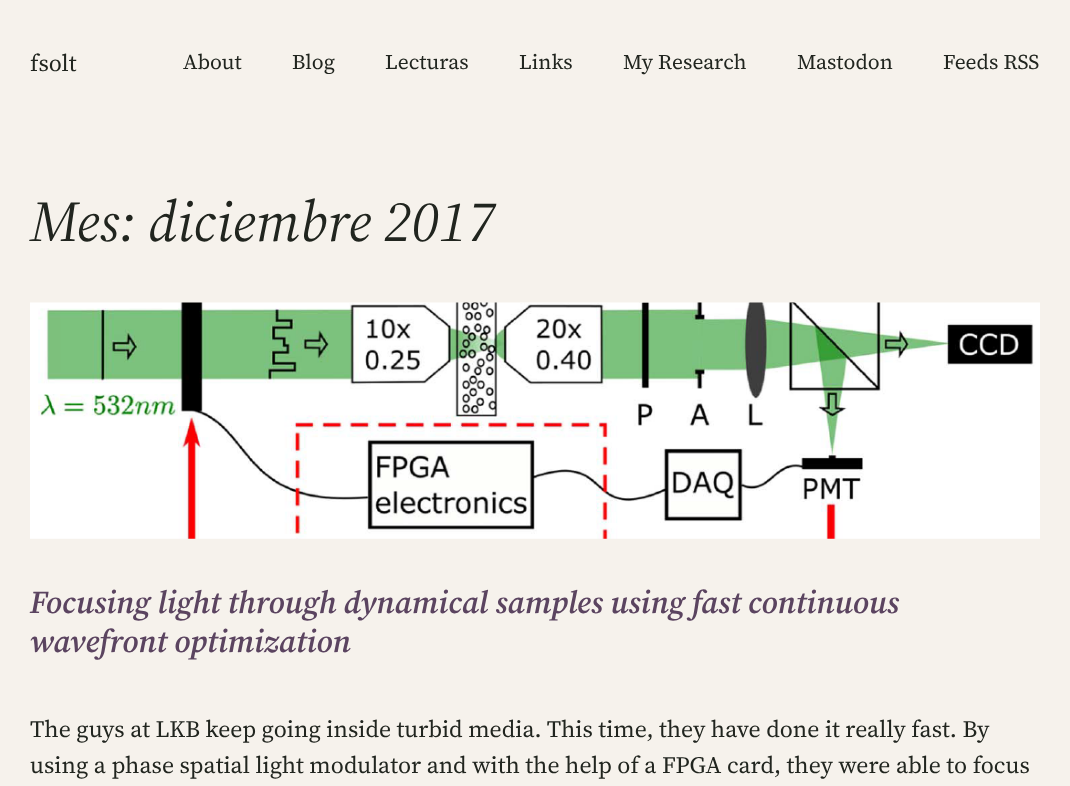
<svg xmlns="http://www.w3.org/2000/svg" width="1070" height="786">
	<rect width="100%" height="100%" fill="#F6F2EC" />
	<text x="30" y="71" font-family="'Source Serif 4'" font-size="23.55" fill="#21251F">fsolt</text>
	<g font-family="'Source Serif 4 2'" font-size="21" fill="#21251F">
		<text x="183" y="69">About</text>
		<text x="292" y="69">Blog</text>
		<text x="385" y="69">Lecturas</text>
		<text x="519" y="69">Links</text>
		<text x="623" y="69">My Research</text>
		<text x="797" y="69">Mastodon</text>
		<text x="943" y="69">Feeds RSS</text>
	</g>
	<text x="30" y="241" font-family="'Source Serif 4'" font-size="57.5" font-style="italic" fill="#21251F">Mes: diciembre 2017</text>
	<image x="30" y="302" width="1010" height="237" href="assets/img1.png" />
	<g font-family="'Source Serif 4'" font-size="31.9" font-weight="600" font-style="italic" fill="#5B4460">
		<text x="30" y="613">Focusing light through dynamical samples using fast continuous</text>
		<text x="30" y="652">wavefront optimization</text>
	</g>
	<g font-family="'Source Serif 4'" font-size="23.55" fill="#21251F">
		<text x="30" y="737">The guys at LKB keep going inside turbid media. This time, they have done it really fast. By</text>
		<text x="30" y="773">using a phase spatial light modulator and with the help of a FPGA card, they were able to focus</text>
	</g>
</svg>
